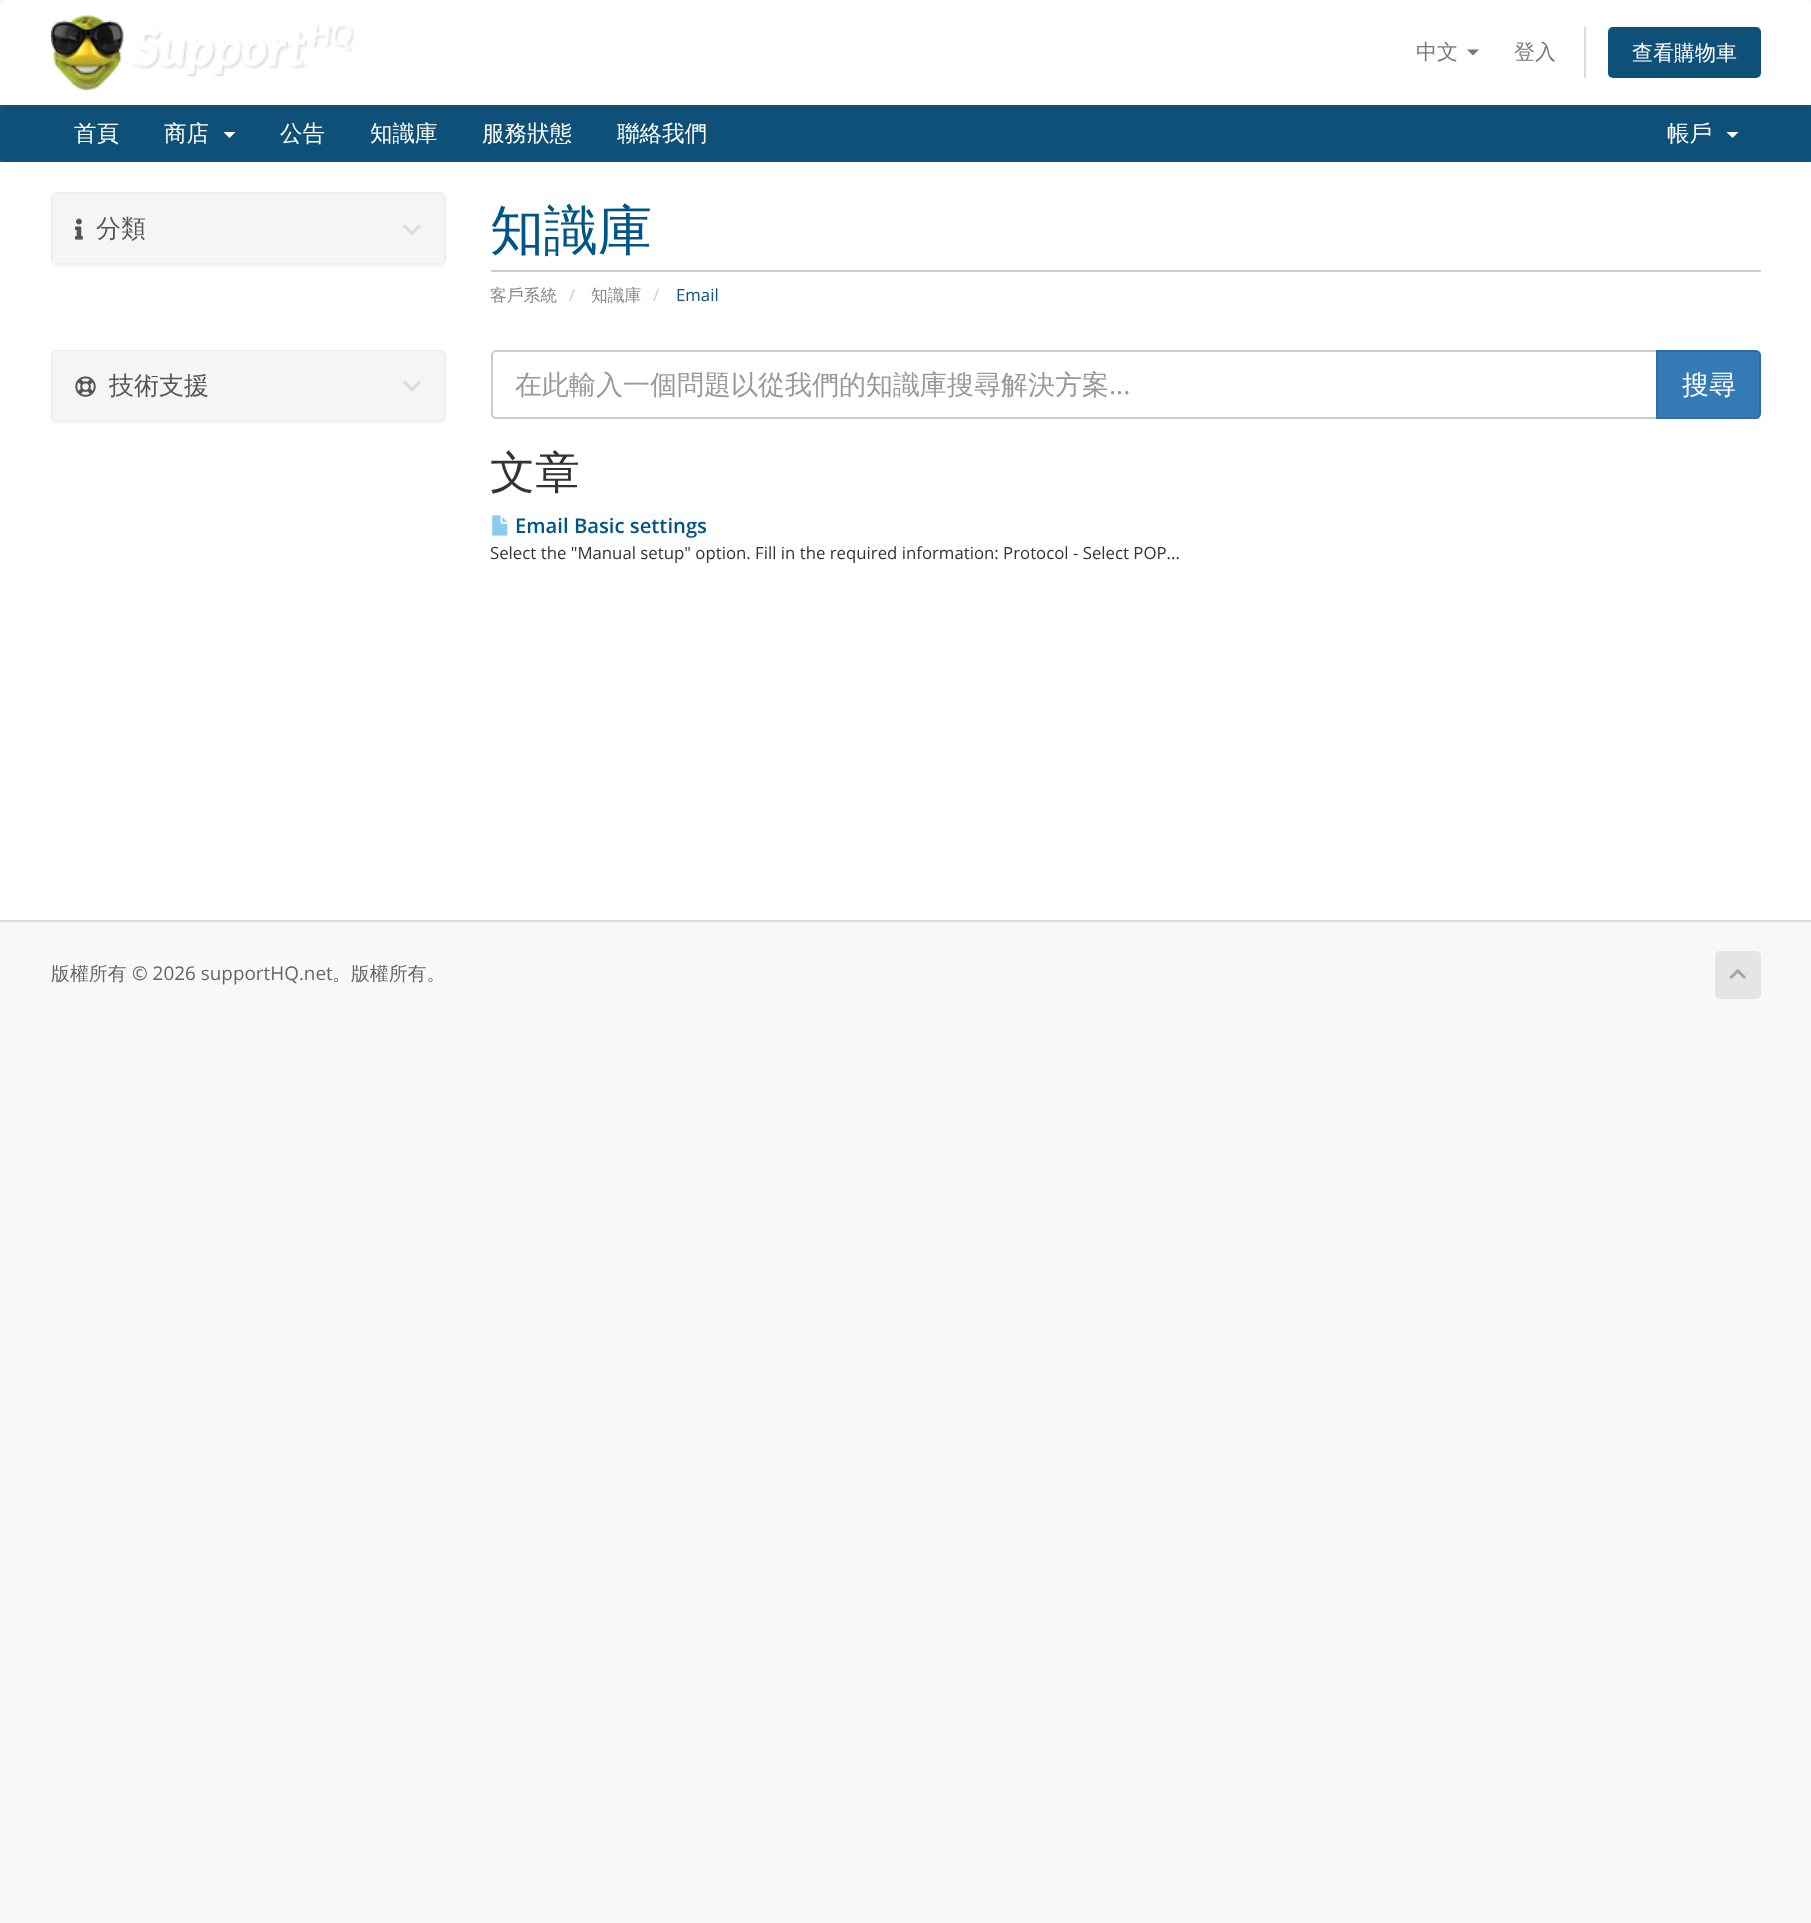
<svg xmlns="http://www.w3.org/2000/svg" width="1811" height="1923">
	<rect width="100%" height="100%" fill="#F8F8F8" />
	<path d="M8 0H1804C1808.5 0 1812 3.5 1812 8V105H0V8C0 3.5 3.5 0 8 0Z" fill="#FFFFFF" />
	<image x="51" y="15" width="304" height="75" href="assets/img1.png" />
	<text x="1416" y="59" font-family="WenQuanYi Zen Hei" font-size="21" font-weight="500" fill="#777777">中文</text>
	<path d="M1467 49.5H1479L1473 55.5Z" fill="#777777" />
	<text x="1514" y="59" font-family="WenQuanYi Zen Hei" font-size="21" font-weight="500" fill="#777777">登入</text>
	<rect x="1584" y="27" width="2" height="51" fill="#DDDDDD" />
	<rect x="1608" y="27" width="153" height="51" rx="5" fill="#0E5077" />
	<text x="1632" y="60" font-family="WenQuanYi Zen Hei" font-size="21" font-weight="500" fill="#FFFFFF">查看購物車</text>
	<rect x="0" y="105" width="1811" height="57" fill="#006687" />
	<rect x="0" y="105" width="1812" height="57" rx="6" fill="#0E5077" />
	<g font-family="WenQuanYi Zen Hei" font-size="22.5" font-weight="500" fill="#FFFFFF">
		<text x="74" y="141">首頁</text>
		<text x="164" y="141">商店</text>
	</g>
	<path d="M223.5 132H235.5L229.5 138Z" fill="#FFFFFF" />
	<g font-family="WenQuanYi Zen Hei" font-size="22.5" font-weight="500" fill="#FFFFFF">
		<text x="280" y="141">公告</text>
		<text x="370" y="141">知識庫</text>
		<text x="482" y="141">服務狀態</text>
		<text x="617" y="141">聯絡我們</text>
		<text x="1667" y="141">帳戶</text>
	</g>
	<path d="M1726.5 132H1738.5L1732.5 138Z" fill="#FFFFFF" />
	<rect x="0" y="162" width="1811" height="758" fill="#FFFFFF" />
	<rect x="51" y="194" width="395" height="72" rx="6" fill="#000000" fill-opacity="0.05" filter="blur(1px)" />
	<rect x="52" y="193" width="393" height="70" rx="5" fill="#FFFFFF" stroke="#EEEEEE" stroke-width="2" />
	<path d="M58 194H439C442 194 444 196 444 199V263H53V199C53 196 55 194 58 194Z" fill="#F5F5F5" />
	<image x="75" y="218" width="8" height="22" href="assets/img2.png" />
	<text x="96" y="237" font-family="WenQuanYi Zen Hei" font-size="25" font-weight="500" fill="#555555">分類</text>
	<image x="403" y="224" width="18" height="12" href="assets/img3.png" />
	<rect x="491" y="270" width="1270" height="2" fill="#CCCCCC" />
	<text x="490" y="249" font-family="WenQuanYi Zen Hei" font-size="54" font-weight="500" fill="#005588">知識庫</text>
	<text x="490" y="301" font-family="WenQuanYi Zen Hei" font-size="16.8" font-weight="500" fill="#888888">客戶系統</text>
	<text x="569" y="301" font-family="Open Sans" font-size="16.8" fill="#CCCCCC">/</text>
	<text x="591" y="301" font-family="WenQuanYi Zen Hei" font-size="16.8" font-weight="500" fill="#888888">知識庫</text>
	<text x="653" y="301" font-family="Open Sans" font-size="16.8" fill="#CCCCCC">/</text>
	<text x="676" y="301" font-family="Open Sans" font-size="16.8" fill="#0E5077">Email</text>
	<rect x="51" y="351" width="395" height="72" rx="6" fill="#000000" fill-opacity="0.05" filter="blur(1px)" />
	<rect x="52" y="351" width="393" height="70" rx="5" fill="none" stroke="#EEEEEE" stroke-width="2" />
	<path d="M58 351H439C442 351 444 353 444 356V420H53V356C53 353 55 351 58 351Z" fill="#F5F5F5" />
	<image x="75" y="376" width="21" height="21" href="assets/img4.png" />
	<text x="109" y="394" font-family="WenQuanYi Zen Hei" font-size="25" font-weight="500" fill="#555555">技術支援</text>
	<image x="403" y="381" width="18" height="11" href="assets/img5.png" />
	<path d="M496 351H1657V418H496C494 418 492 416 492 414V355C492 353 494 351 496 351Z" fill="none" stroke="#CCCCCC" stroke-width="2" />
	<text x="515" y="394" font-family="WenQuanYi Zen Hei" font-size="27" font-weight="500" fill="#999999">在此輸入一個問題以從我們的知識庫搜尋解決方案</text>
	<text x="1109" y="394" font-family="Open Sans" font-size="27" fill="#999999">...</text>
	<path d="M1657 351H1756C1758 351 1760 353 1760 355V414C1760 416 1758 418 1756 418H1657Z" fill="#337AB7" stroke="#2E6DA4" stroke-width="2" />
	<text x="1682" y="394" font-family="WenQuanYi Zen Hei" font-size="27" font-weight="500" fill="#FFFFFF">搜尋</text>
	<text x="490" y="488" font-family="WenQuanYi Zen Hei" font-size="45" font-weight="500" fill="#333333">文章</text>
	<image x="492" y="515" width="16" height="21" href="assets/img6.png" />
	<text x="515" y="533" font-family="Open Sans" font-size="20.25" font-weight="600" fill="#005588">Email Basic settings</text>
	<text x="490" y="559" font-family="Open Sans" font-size="16.8" fill="#333333">Select the "Manual setup" option. Fill in the required information: Protocol - Select POP...</text>
	<rect x="0" y="920" width="1811" height="2" fill="#DDDDDD" />
	<text x="51" y="980" font-family="WenQuanYi Zen Hei" font-size="18.9" font-weight="500" fill="#666666">版權所有</text>
	<text x="132" y="980" font-family="Open Sans" font-size="18.9" fill="#666666">© 2026 supportHQ.net</text>
	<text x="332" y="980" font-family="WenQuanYi Zen Hei" font-size="18.9" font-weight="500" fill="#666666">。版權所有。</text>
	<rect x="1715" y="951" width="46" height="48" rx="5" fill="#E5E5E5" />
	<image x="1729" y="969" width="17" height="10" href="assets/img7.png" />
</svg>
